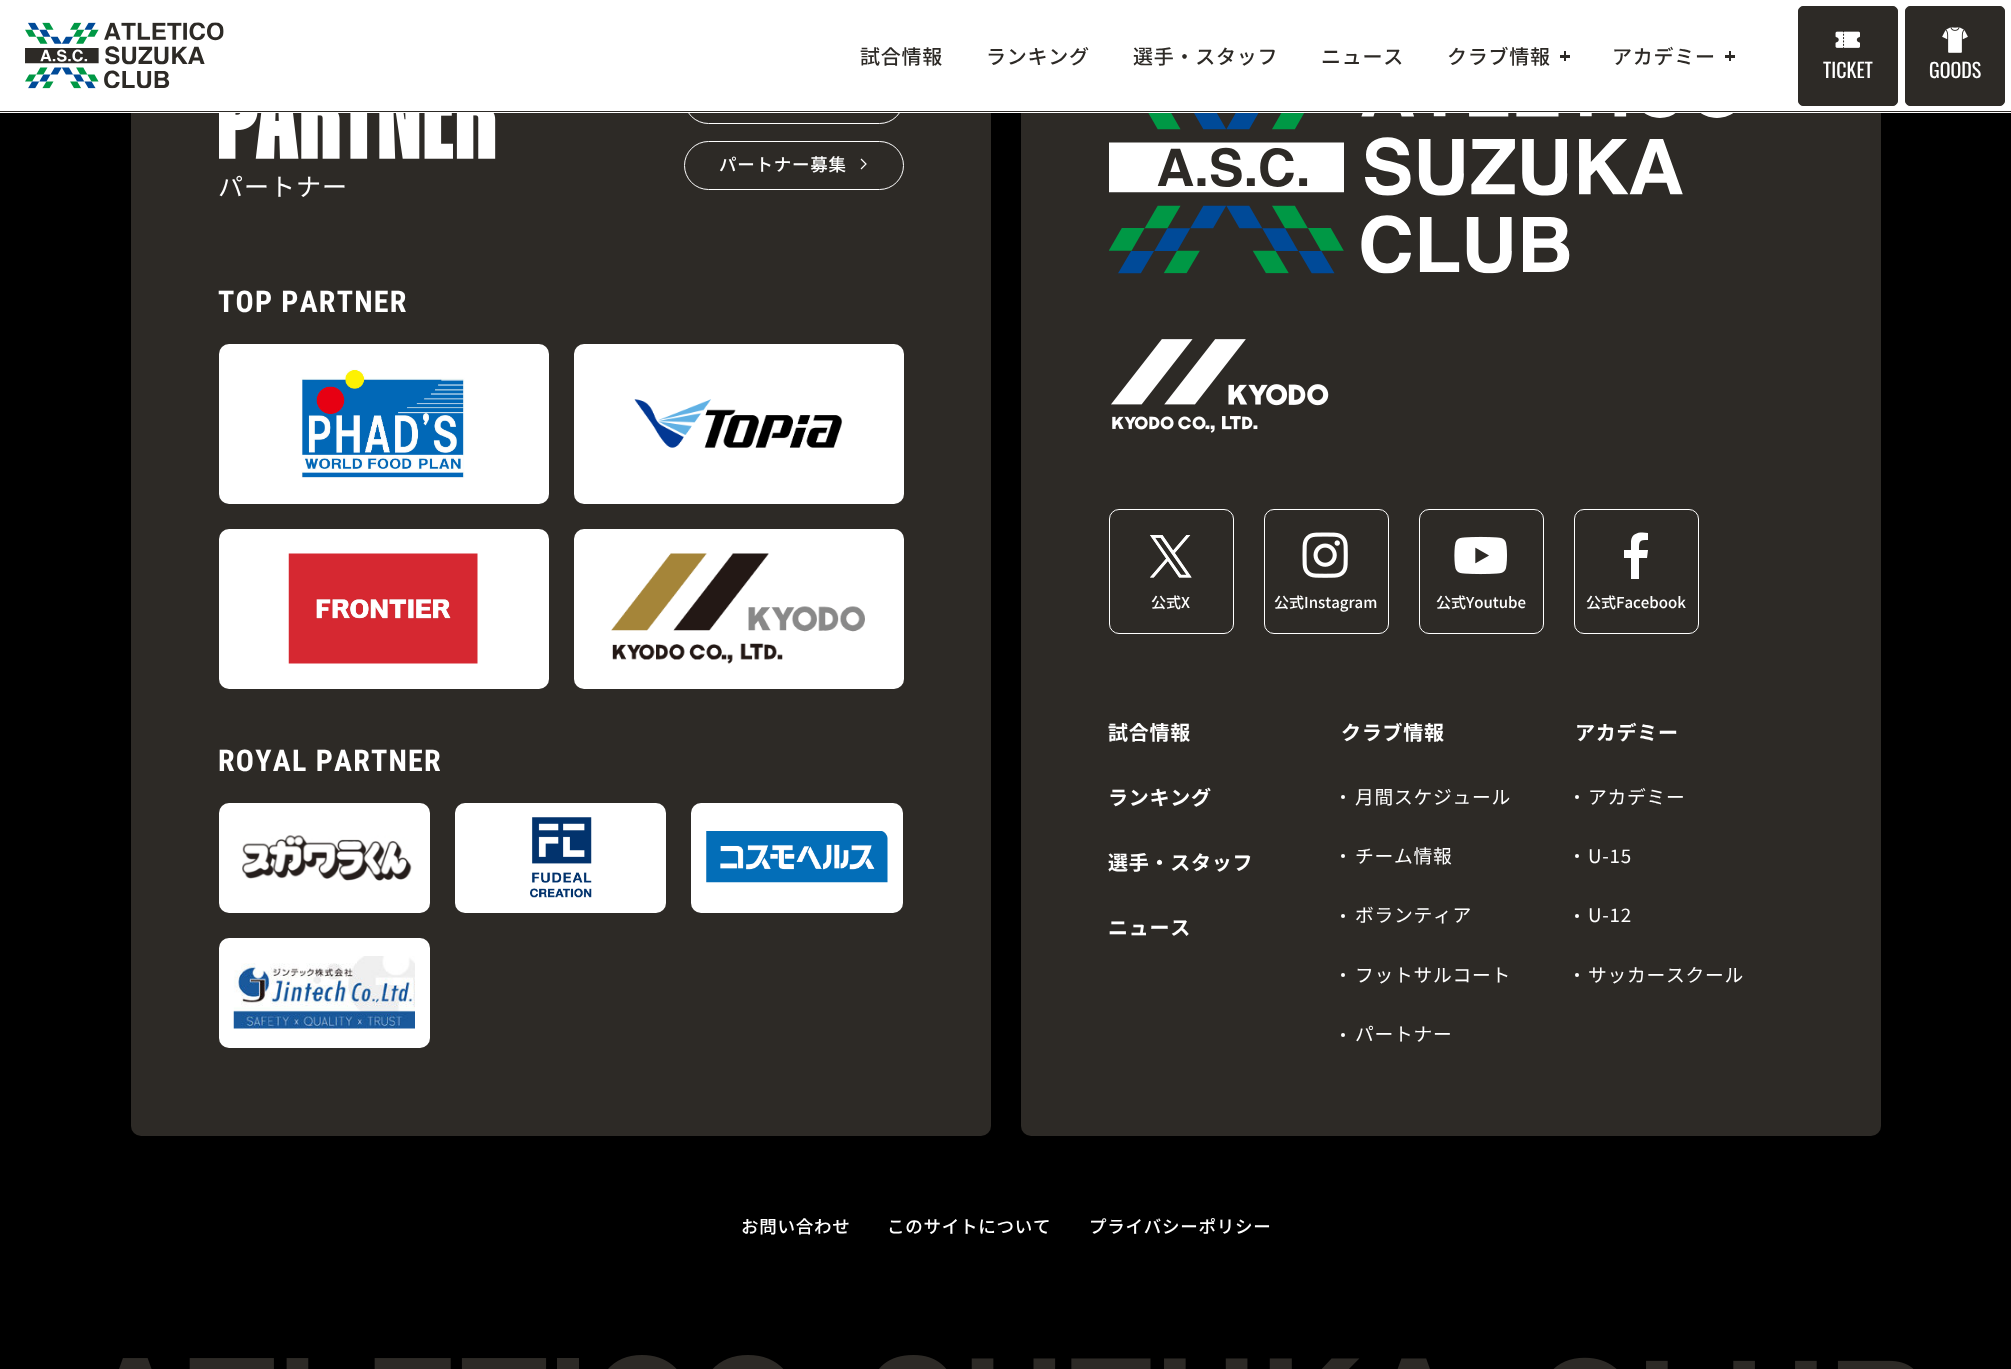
<svg xmlns="http://www.w3.org/2000/svg" width="2011" height="1369">
	<style>*{font-kerning:none!important;font-variant-ligatures:none!important}</style>
	<rect width="100%" height="100%" fill="#000000" />
	<rect x="131" y="-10" width="860" height="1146" rx="10" fill="#2D2A26" />
	<rect x="684.5" y="75.5" width="219" height="48" rx="24" fill="none" stroke="#FFFFFF" />
	<rect x="1021" y="-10" width="860" height="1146" rx="10" fill="#2D2A26" />
	<rect x="0" y="0" width="2011" height="113" fill="#FFFFFF" />
	<rect x="0" y="111" width="2011" height="1" fill="#2D2A26" />
	<image x="25" y="22" width="199" height="67" href="assets/img1.png" />
	<g font-family="Noto Sans JP" font-size="20" font-weight="500" letter-spacing="0.75" fill="#2D2A26">
		<text x="860" y="64">試合情報</text>
		<text x="986" y="64">ランキング</text>
		<text x="1133" y="64">選手・スタッフ</text>
		<text x="1321" y="64">ニュース</text>
		<text x="1447" y="64">クラブ情報</text>
	</g>
	<rect x="1560" y="55" width="10" height="3" fill="#2D2A26" />
	<rect x="1564" y="51" width="2" height="10" fill="#2D2A26" />
	<text x="1612" y="64" font-family="Noto Sans JP" font-size="20" font-weight="500" letter-spacing="0.75" fill="#2D2A26">アカデミー</text>
	<rect x="1725" y="55" width="10" height="3" fill="#2D2A26" />
	<rect x="1729" y="51" width="2" height="10" fill="#2D2A26" />
	<rect x="1798.5" y="6.5" width="99" height="99" rx="4.5" fill="#2D2A26" stroke="#2D2A26" />
	<image x="1835" y="31" width="25" height="17" href="assets/img2.png" />
	<text x="1823" y="78" font-family="Oswald" font-size="20" fill="#FFFFFF">TICKET</text>
	<rect x="1905.5" y="6.5" width="99" height="99" rx="4.5" fill="#2D2A26" stroke="#2D2A26" />
	<image x="1942" y="27" width="26" height="26" href="assets/img3.png" />
	<text x="1929" y="78" font-family="Oswald" font-size="20" fill="#FFFFFF">GOODS</text>
	<rect x="684.5" y="141.5" width="219" height="48" rx="24" fill="none" stroke="#FFFFFF" />
	<text x="719" y="171" font-family="Noto Sans JP" font-size="17.5" font-weight="500" letter-spacing="0.75" fill="#FFFFFF">パートナー募集</text>
	<path d="M861 159L866 164L861 169" fill="none" stroke="#FFFFFF" stroke-width="1.2" />
	<image x="219" y="113" width="277" height="46" href="assets/img4.png" />
	<text x="218" y="196" font-family="Noto Sans JP" font-size="25" letter-spacing="1" fill="#FFFFFF">パートナー</text>
	<text x="218" y="312" font-family="Roboto Condensed" font-size="30" font-weight="700" letter-spacing="1.25" fill="#FFFFFF">TOP PARTNER</text>
	<rect x="219" y="344" width="330" height="160" rx="10" fill="#FFFFFF" />
	<image x="301" y="369" width="164" height="109" href="assets/img5.png" />
	<rect x="574" y="344" width="330" height="160" rx="10" fill="#FFFFFF" />
	<image x="634" y="399" width="209" height="49" href="assets/img6.png" />
	<rect x="219" y="529" width="330" height="160" rx="10" fill="#FFFFFF" />
	<image x="288" y="553" width="190" height="111" href="assets/img7.png" />
	<rect x="574" y="529" width="330" height="160" rx="10" fill="#FFFFFF" />
	<image x="611" y="553" width="254" height="111" href="assets/img8.png" />
	<text x="218" y="771" font-family="Roboto Condensed" font-size="30" font-weight="700" letter-spacing="1.25" fill="#FFFFFF">ROYAL PARTNER</text>
	<rect x="219" y="803" width="211" height="110" rx="10" fill="#FFFFFF" />
	<image x="242" y="835" width="170" height="46" href="assets/img9.png" />
	<rect x="455" y="803" width="211" height="110" rx="10" fill="#FFFFFF" />
	<image x="530" y="817" width="62" height="81" href="assets/img10.png" />
	<rect x="691" y="803" width="212" height="110" rx="10" fill="#FFFFFF" />
	<image x="706" y="831" width="182" height="52" href="assets/img11.png" />
	<rect x="219" y="938" width="211" height="110" rx="10" fill="#FFFFFF" />
	<image x="233" y="956" width="182" height="73" href="assets/img12.png" />
	<image x="1109" y="113" width="624" height="161" href="assets/img13.png" />
	<image x="1111" y="339" width="218" height="94" href="assets/img14.png" />
	<rect x="1109.5" y="509.5" width="124" height="124" rx="9.5" fill="none" stroke="#FFFFFF" />
	<image x="1150" y="535" width="42" height="43" href="assets/img15.png" />
	<text x="1151" y="608" font-family="Noto Sans JP" font-size="15" font-weight="500" fill="#FFFFFF">公式X</text>
	<rect x="1264.5" y="509.5" width="124" height="124" rx="9.5" fill="none" stroke="#FFFFFF" />
	<image x="1302" y="532" width="46" height="46" href="assets/img16.png" />
	<text x="1274" y="608" font-family="Noto Sans JP" font-size="15" font-weight="500" fill="#FFFFFF">公式Instagram</text>
	<rect x="1419.5" y="509.5" width="124" height="124" rx="9.5" fill="none" stroke="#FFFFFF" />
	<image x="1454" y="536" width="53" height="39" href="assets/img17.png" />
	<text x="1436" y="608" font-family="Noto Sans JP" font-size="15" font-weight="500" fill="#FFFFFF">公式Youtube</text>
	<rect x="1574.5" y="509.5" width="124" height="124" rx="9.5" fill="none" stroke="#FFFFFF" />
	<path d="M1639 579V558H1647L1648 550H1639C1639 541 1639 540 1648 540V533C1641 532 1632 532 1631 541V550H1624V558H1631V579Z" fill="#FFFFFF" />
	<text x="1586" y="608" font-family="Noto Sans JP" font-size="15" font-weight="500" fill="#FFFFFF">公式Facebook</text>
	<g font-family="Noto Sans JP" font-size="20" font-weight="700" letter-spacing="0.75" fill="#FFFFFF">
		<text x="1108" y="740">試合情報</text>
		<text x="1108" y="805">ランキング</text>
		<text x="1108" y="870">選手・スタッフ</text>
		<text x="1108" y="935">ニュース</text>
		<text x="1341" y="740">クラブ情報</text>
	</g>
	<circle cx="1343" cy="797" r="2" fill="#FFFFFF" />
	<text x="1355" y="804" font-family="Noto Sans JP" font-size="18.75" letter-spacing="0.75" fill="#FFFFFF">月間スケジュール</text>
	<circle cx="1343" cy="856" r="2" fill="#FFFFFF" />
	<text x="1355" y="863" font-family="Noto Sans JP" font-size="18.75" letter-spacing="0.75" fill="#FFFFFF">チーム情報</text>
	<circle cx="1343" cy="916" r="2" fill="#FFFFFF" />
	<text x="1355" y="922" font-family="Noto Sans JP" font-size="18.75" letter-spacing="0.75" fill="#FFFFFF">ボランティア</text>
	<circle cx="1343" cy="975" r="2" fill="#FFFFFF" />
	<text x="1355" y="982" font-family="Noto Sans JP" font-size="18.75" letter-spacing="0.75" fill="#FFFFFF">フットサルコート</text>
	<circle cx="1343" cy="1035" r="2" fill="#FFFFFF" />
	<text x="1355" y="1041" font-family="Noto Sans JP" font-size="18.75" letter-spacing="0.75" fill="#FFFFFF">パートナー</text>
	<text x="1575" y="740" font-family="Noto Sans JP" font-size="20" font-weight="700" letter-spacing="0.75" fill="#FFFFFF">アカデミー</text>
	<circle cx="1577" cy="797" r="2" fill="#FFFFFF" />
	<text x="1588" y="804" font-family="Noto Sans JP" font-size="18.75" letter-spacing="0.75" fill="#FFFFFF">アカデミー</text>
	<circle cx="1577" cy="856" r="2" fill="#FFFFFF" />
	<text x="1588" y="863" font-family="Noto Sans JP" font-size="18.75" letter-spacing="0.75" fill="#FFFFFF">U-15</text>
	<circle cx="1577" cy="916" r="2" fill="#FFFFFF" />
	<text x="1588" y="922" font-family="Noto Sans JP" font-size="18.75" letter-spacing="0.75" fill="#FFFFFF">U-12</text>
	<circle cx="1577" cy="975" r="2" fill="#FFFFFF" />
	<text x="1588" y="982" font-family="Noto Sans JP" font-size="18.75" letter-spacing="0.75" fill="#FFFFFF">サッカースクール</text>
	<g font-family="Noto Sans JP" font-size="17.5" font-weight="500" letter-spacing="0.75" fill="#FFFFFF">
		<text x="741" y="1233">お問い合わせ</text>
		<text x="887" y="1233">このサイトについて</text>
		<text x="1089" y="1233">プライバシーポリシー</text>
	</g>
	<image x="119" y="1355" width="1795" height="14" href="assets/img18.png" />
</svg>
